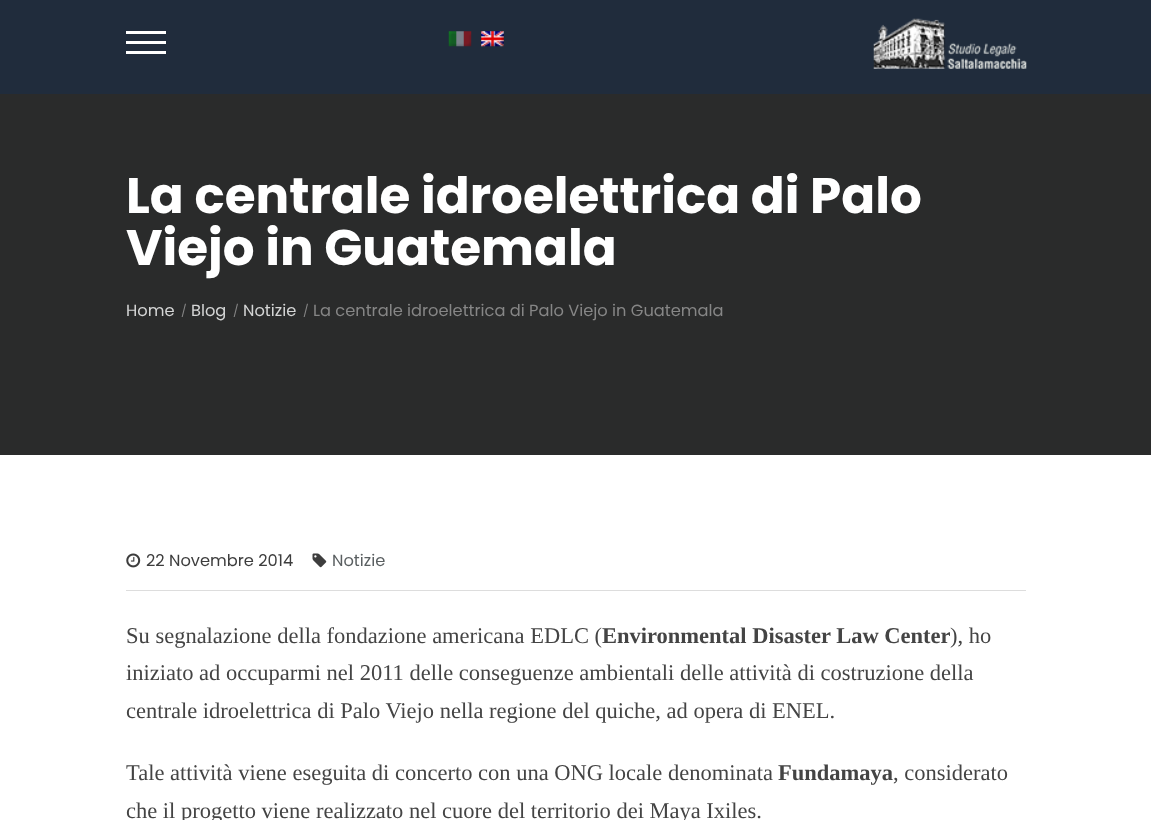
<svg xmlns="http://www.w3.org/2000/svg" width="1151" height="820">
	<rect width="100%" height="100%" fill="#FFFFFF" />
	<rect x="0" y="0" width="1151" height="94" fill="#202C3C" />
	<rect x="126" y="31" width="40" height="3" fill="#FFFFFF" />
	<rect x="126" y="41" width="40" height="3" fill="#FFFFFF" />
	<rect x="126" y="51" width="40" height="3" fill="#FFFFFF" />
	<image x="448" y="31" width="24" height="16" href="assets/img1.png" />
	<image x="481" y="31" width="23" height="16" href="assets/img2.png" />
	<image x="873" y="18" width="154" height="51" href="assets/img3.png" />
	<rect x="0" y="94" width="1151" height="361" fill="#2A2B2B" />
	<g font-family="Poppins" font-size="50" font-weight="700" fill="#FFFFFF">
		<text x="126" y="213">La centrale idroelettrica di Palo</text>
		<text x="126" y="265">Viejo in Guatemala</text>
	</g>
	<text x="126" y="316" font-family="Poppins" font-size="16.25" fill="#D4D5D5">Home</text>
	<text x="181" y="315" font-family="Poppins" font-size="12" fill="#868686">/</text>
	<text x="191" y="316" font-family="Poppins" font-size="16.25" fill="#D4D5D5">Blog</text>
	<text x="233" y="315" font-family="Poppins" font-size="12" fill="#868686">/</text>
	<text x="243" y="316" font-family="Poppins" font-size="16.25" fill="#D4D5D5">Notizie</text>
	<text x="303" y="315" font-family="Poppins" font-size="12" fill="#868686">/</text>
	<text x="313" y="316" font-family="Poppins" font-size="16.25" fill="#868686">La centrale idroelettrica di Palo Viejo in Guatemala</text>
	<rect x="126" y="590" width="900" height="1" fill="#DDDDDD" />
	<image x="126" y="553" width="15" height="15" href="assets/img4.png" />
	<text x="146" y="566" font-family="Poppins" font-size="16.25" fill="#3D3D3D">22 Novembre 2014</text>
	<image x="312" y="553" width="15" height="15" href="assets/img5.png" />
	<text x="332" y="566" font-family="Poppins" font-size="16.25" fill="#5A5F61">Notizie</text>
	<text x="126" y="643" font-family="Liberation Serif" font-size="22.5" fill="#444444">Su segnalazione della fondazione americana EDLC (</text>
	<text x="602" y="643" font-family="Liberation Serif" font-size="22.5" font-weight="700" fill="#444444">Environmental Disaster Law Center</text>
	<g font-family="Liberation Serif" font-size="22.5" fill="#444444">
		<text x="950" y="643">), ho</text>
		<text x="126" y="680">iniziato ad occuparmi nel 2011 delle conseguenze ambientali delle attività di costruzione della</text>
		<text x="126" y="718">centrale idroelettrica di Palo Viejo nella regione del quiche, ad opera di ENEL.</text>
		<text x="126" y="780">Tale attività viene eseguita di concerto con una ONG locale denominata</text>
	</g>
	<text x="778" y="780" font-family="Liberation Serif" font-size="22.5" font-weight="700" fill="#444444">Fundamaya</text>
	<g font-family="Liberation Serif" font-size="22.5" fill="#444444">
		<text x="893" y="780">, considerato</text>
		<text x="126" y="818">che il progetto viene realizzato nel cuore del territorio dei Maya Ixiles.</text>
	</g>
</svg>
